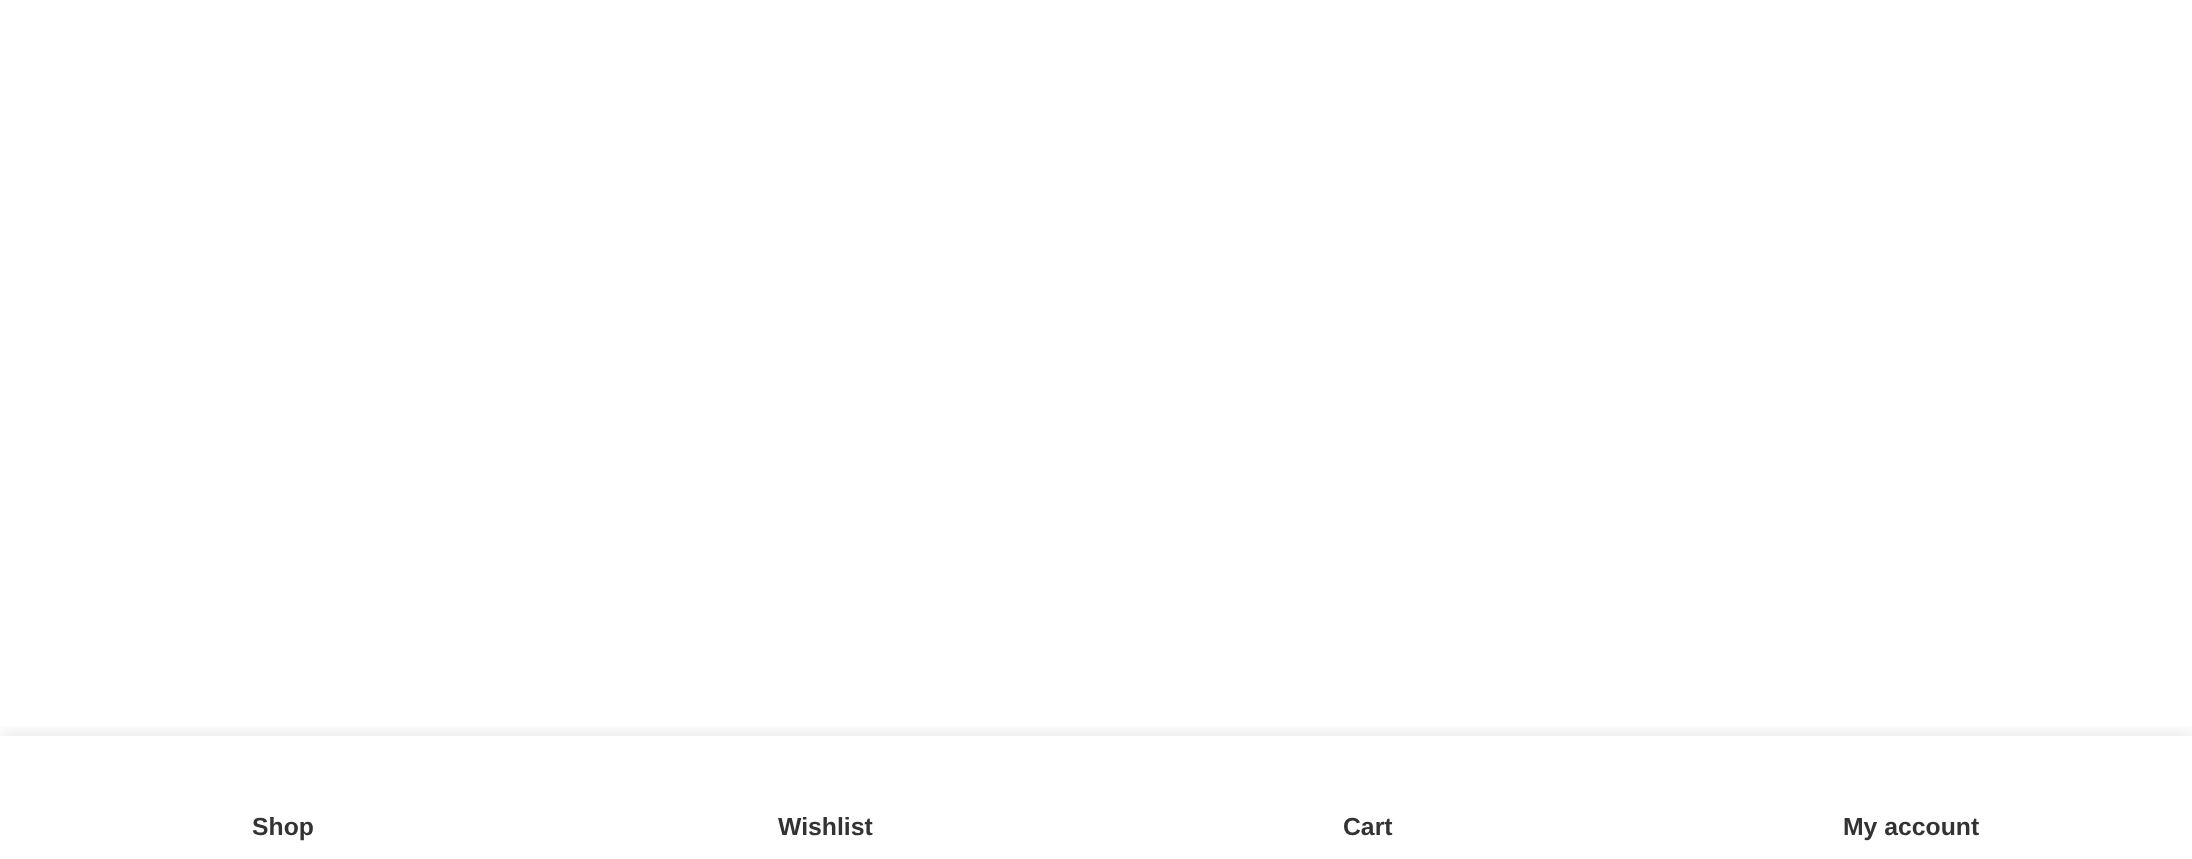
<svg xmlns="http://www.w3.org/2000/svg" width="2192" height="859">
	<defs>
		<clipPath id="clip1"><rect x="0" y="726" width="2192" height="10" /></clipPath>
	</defs>
	<rect width="100%" height="100%" fill="#FFFFFF" />
	<g clip-path="url(#clip1)">
		<rect x="0" y="736" width="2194" height="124" fill="#000000" fill-opacity="0.12" filter="blur(10px)" />
	</g>
	<g font-family="Liberation Sans" font-size="24.75" font-weight="700" fill="#333333">
		<text x="252" y="835">Shop</text>
		<text x="778" y="835">Wishlist</text>
		<text x="1343" y="835">Cart</text>
		<text x="1843" y="835">My account</text>
	</g>
</svg>
